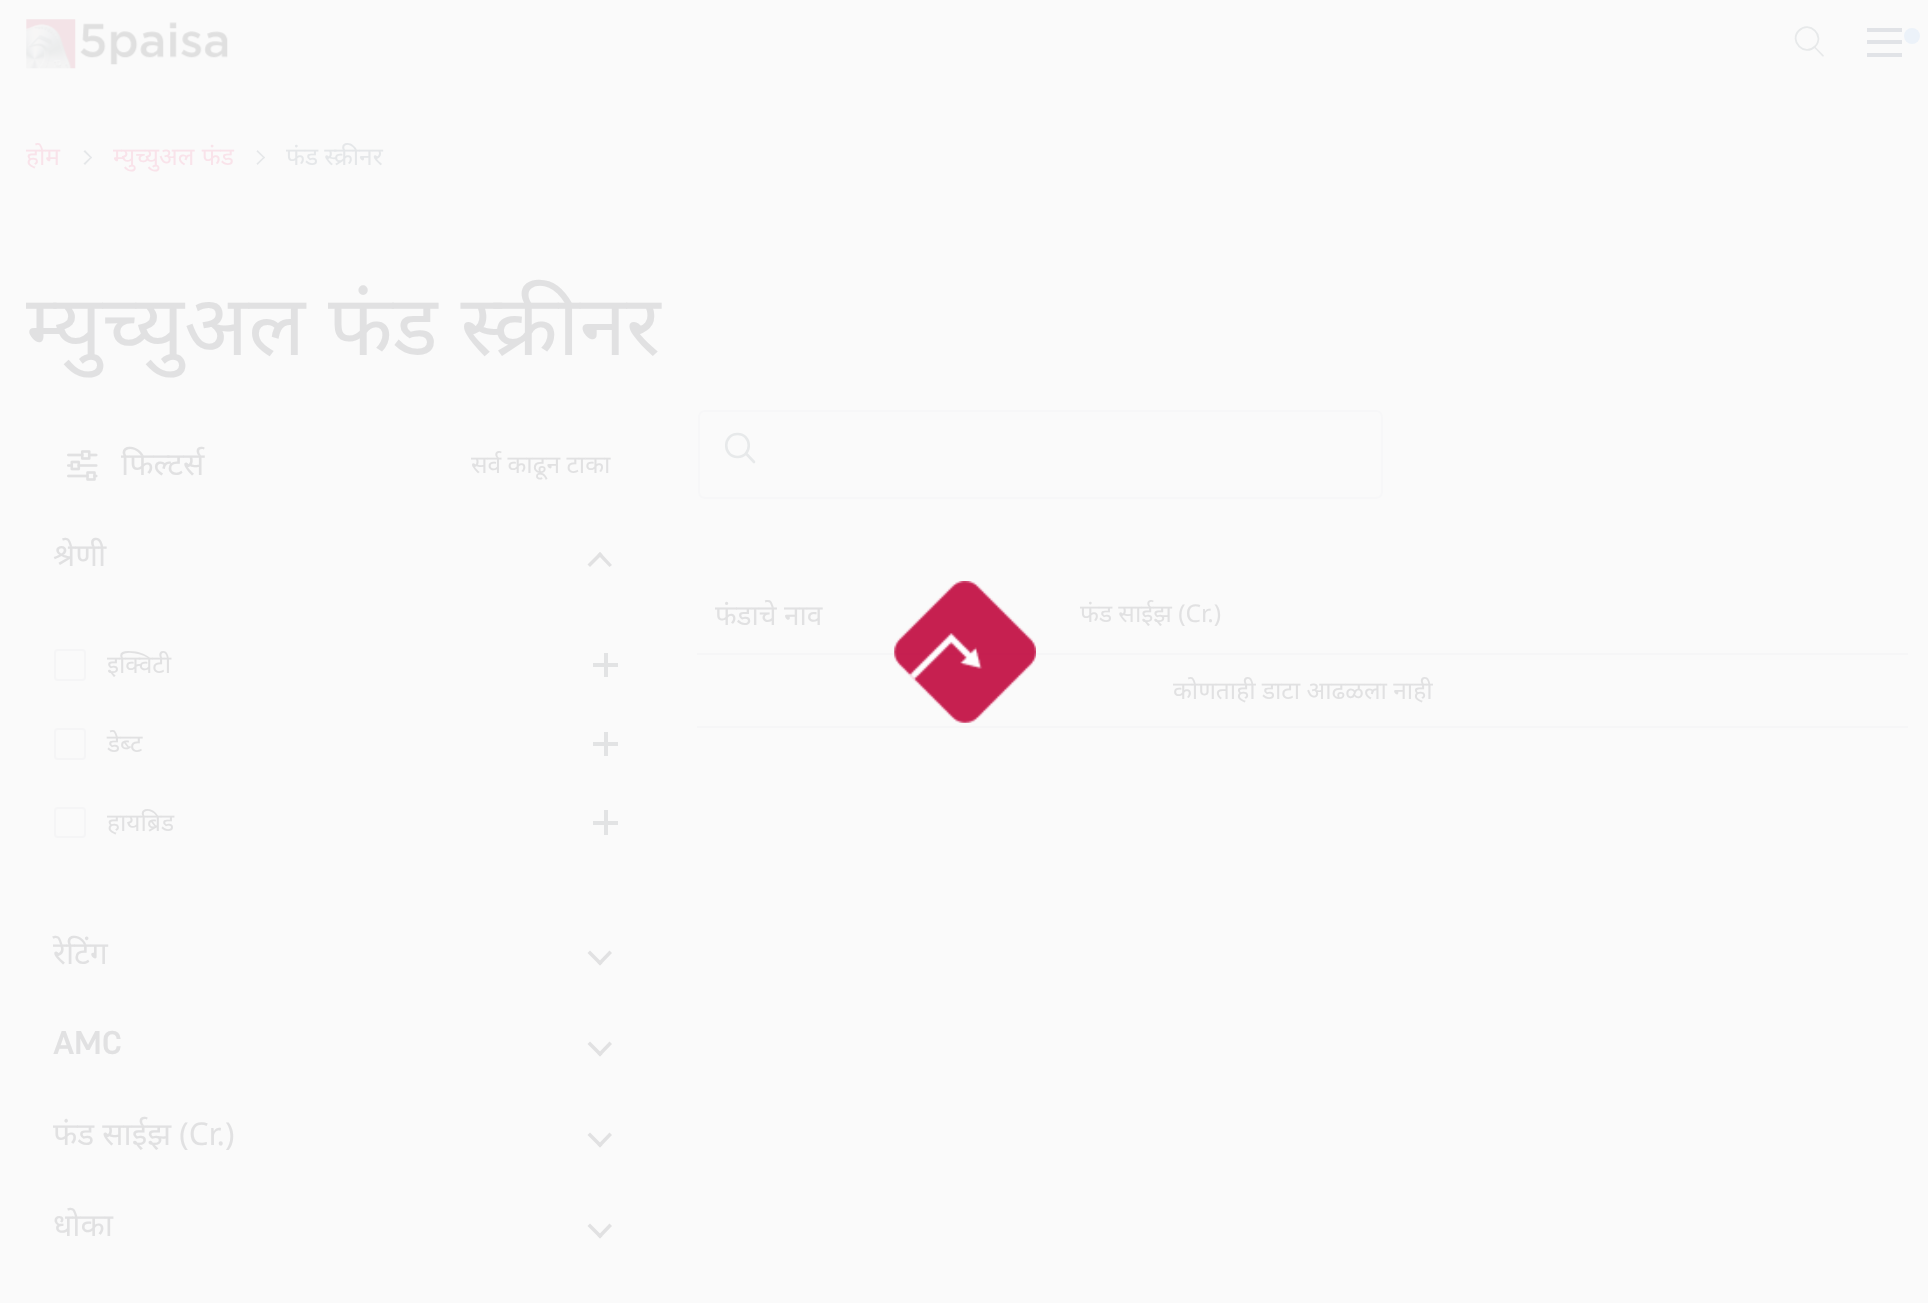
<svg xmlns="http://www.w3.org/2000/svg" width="1928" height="1303">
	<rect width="100%" height="100%" fill="#FAFAFA" />
	<image x="26" y="19" width="202" height="50" href="assets/img1.png" />
	<path d="M1814 46.5C1814 46 1814.5 46 1815 46.5L1823.5 55C1824 55.5 1824 56 1823.5 56.5C1823.5 56.5 1823 56.5 1822.5 56.5L1814 47.5C1813.5 47.5 1813.5 47 1814 46.5Z" fill="#E7E9EA" />
	<path d="M1799 30.5C1809.5 20 1825.5 36 1815 46.5C1804.5 57 1788.5 41 1799 30.5Z" fill="none" stroke="#E7E9EA" stroke-width="1.8" />
	<rect x="1867" y="28" width="35" height="4" fill="#E1E3E7" />
	<circle cx="1912" cy="36" r="8" fill="#ECF2F9" />
	<rect x="1867" y="40" width="35" height="4" fill="#E1E3E7" />
	<rect x="1867" y="53" width="35" height="4" fill="#E1E3E7" />
	<text x="26" y="165" font-family="Noto Sans" font-size="24.5" fill="#F9E3EA">होम</text>
	<path d="M91 158.5L83.5 151.5L85 150L92 157.5Z" fill="#E5E7E9" />
	<path d="M85 165L83.5 163.5L91 156.5L92 157.5Z" fill="#E5E7E9" />
	<text x="113" y="165" word-spacing="1" font-family="Noto Sans" font-size="24.5" fill="#F9E3EA">म्युच्युअल फंड</text>
	<path d="M264 158.5L256.5 151.5L257.5 150L265 157.5Z" fill="#E5E7E9" />
	<path d="M257.5 165L256.5 163.5L264 156.5L265 157.5Z" fill="#E5E7E9" />
	<text x="286" y="165" font-family="Noto Sans" font-size="24.5" fill="#E5E7E9">फंड स्क्रीनर</text>
	<text x="26" y="355" word-spacing="1" font-family="Noto Sans" font-size="84" fill="#E1E1E2">म्युच्युअल फंड स्क्रीनर</text>
	<image x="67" y="450" width="31" height="31" href="assets/img2.png" />
	<text x="121" y="475" font-family="Noto Sans" font-size="31.5" fill="#E1E1E2">फिल्टर्स</text>
	<text x="471" y="473" font-family="Noto Sans" font-size="24.5" fill="#E1E1E2">सर्व काढून टाका</text>
	<text x="53" y="566" font-family="Noto Sans" font-size="31.5" fill="#E1E1E2">श्रेणी</text>
	<path d="M602.5 554.5L590 567L587.5 564.5L600 552Z" fill="#E1E1E2" />
	<path d="M612 565L609.5 567L597.5 554.5L600 552Z" fill="#E1E1E2" />
	<rect x="55" y="650" width="30" height="30" rx="3" fill="none" stroke="#F5F5F6" stroke-width="2" />
	<text x="107" y="673" font-family="Noto Sans" font-size="24.5" fill="#E1E1E2">इक्विटी</text>
	<rect x="593" y="663" width="25" height="4" fill="#E2E3E4" />
	<rect x="604" y="653" width="4" height="24" fill="#E2E3E4" />
	<rect x="55" y="729" width="30" height="30" rx="3" fill="none" stroke="#F5F5F6" stroke-width="2" />
	<text x="107" y="752" font-family="Noto Sans" font-size="24.5" fill="#E1E1E2">डेब्ट</text>
	<rect x="593" y="742" width="25" height="4" fill="#E2E3E4" />
	<rect x="604" y="732" width="4" height="24" fill="#E2E3E4" />
	<rect x="55" y="808" width="30" height="29" rx="3" fill="none" stroke="#F5F5F6" stroke-width="2" />
	<text x="107" y="831" font-family="Noto Sans" font-size="24.5" fill="#E1E1E2">हायब्रिड</text>
	<rect x="593" y="821" width="25" height="4" fill="#E2E3E4" />
	<rect x="604" y="810" width="4" height="25" fill="#E2E3E4" />
	<text x="53" y="964" font-family="Noto Sans" font-size="31.5" fill="#E1E1E2">रेटिंग</text>
	<path d="M597.5 963L609.5 950.5L612 953L600 965.5Z" fill="#E1E1E2" />
	<path d="M587.5 953L590 950.5L602.5 963L600 965.5Z" fill="#E1E1E2" />
	<text x="53" y="1054" font-family="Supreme" font-size="31.5" font-weight="700" fill="#E1E1E2">AMC</text>
	<path d="M597.5 1054L609.5 1041.5L612 1044L600 1056.5Z" fill="#E1E1E2" />
	<path d="M587.5 1044L590 1041.5L602.5 1054L600 1056.5Z" fill="#E1E1E2" />
	<text x="53" y="1145" font-family="Noto Sans" font-size="31.5" fill="#E1E1E2">फंड साईझ (Cr.)</text>
	<path d="M597.5 1145L609.5 1132.5L612 1135L600 1147.5Z" fill="#E1E1E2" />
	<path d="M587.5 1135L590 1132.5L602.5 1145L600 1147.5Z" fill="#E1E1E2" />
	<text x="53" y="1236" font-family="Noto Sans" font-size="31.5" fill="#E1E1E2">धोका</text>
	<path d="M597.5 1236L609.5 1223.5L612 1226L600 1238.5Z" fill="#E1E1E2" />
	<path d="M587.5 1226L590 1223.5L602.5 1236L600 1238.5Z" fill="#E1E1E2" />
	<rect x="699" y="411" width="683" height="87" rx="6" fill="none" stroke="#F7F7F8" stroke-width="2" />
	<path d="M737.5 457C752.5 457 752.5 434 737.5 434C722.5 434 722.5 457 737.5 457ZM754 462L746.5 454" fill="none" stroke="#E7E9EA" stroke-width="2.6" stroke-linecap="round" stroke-linejoin="round" />
	<rect x="697" y="653" width="1211" height="2" fill="#F1F1F3" fill-opacity="0.4" />
	<text x="715" y="625" font-family="Noto Sans" font-size="28" fill="#E1E1E2">फंडाचे नाव</text>
	<text x="1080" y="622" font-family="Noto Sans" font-size="24.5" fill="#E1E1E2">फंड साईझ (Cr.)</text>
	<rect x="697" y="726" width="1211" height="2" fill="#F1F1F3" fill-opacity="0.4" />
	<text x="1173" y="699" font-family="Noto Sans" font-size="24.5" fill="#E1E1E2">कोणताही डाटा आढळला नाही</text>
	<image x="894" y="581" width="142" height="142" href="assets/img3.png" />
</svg>
